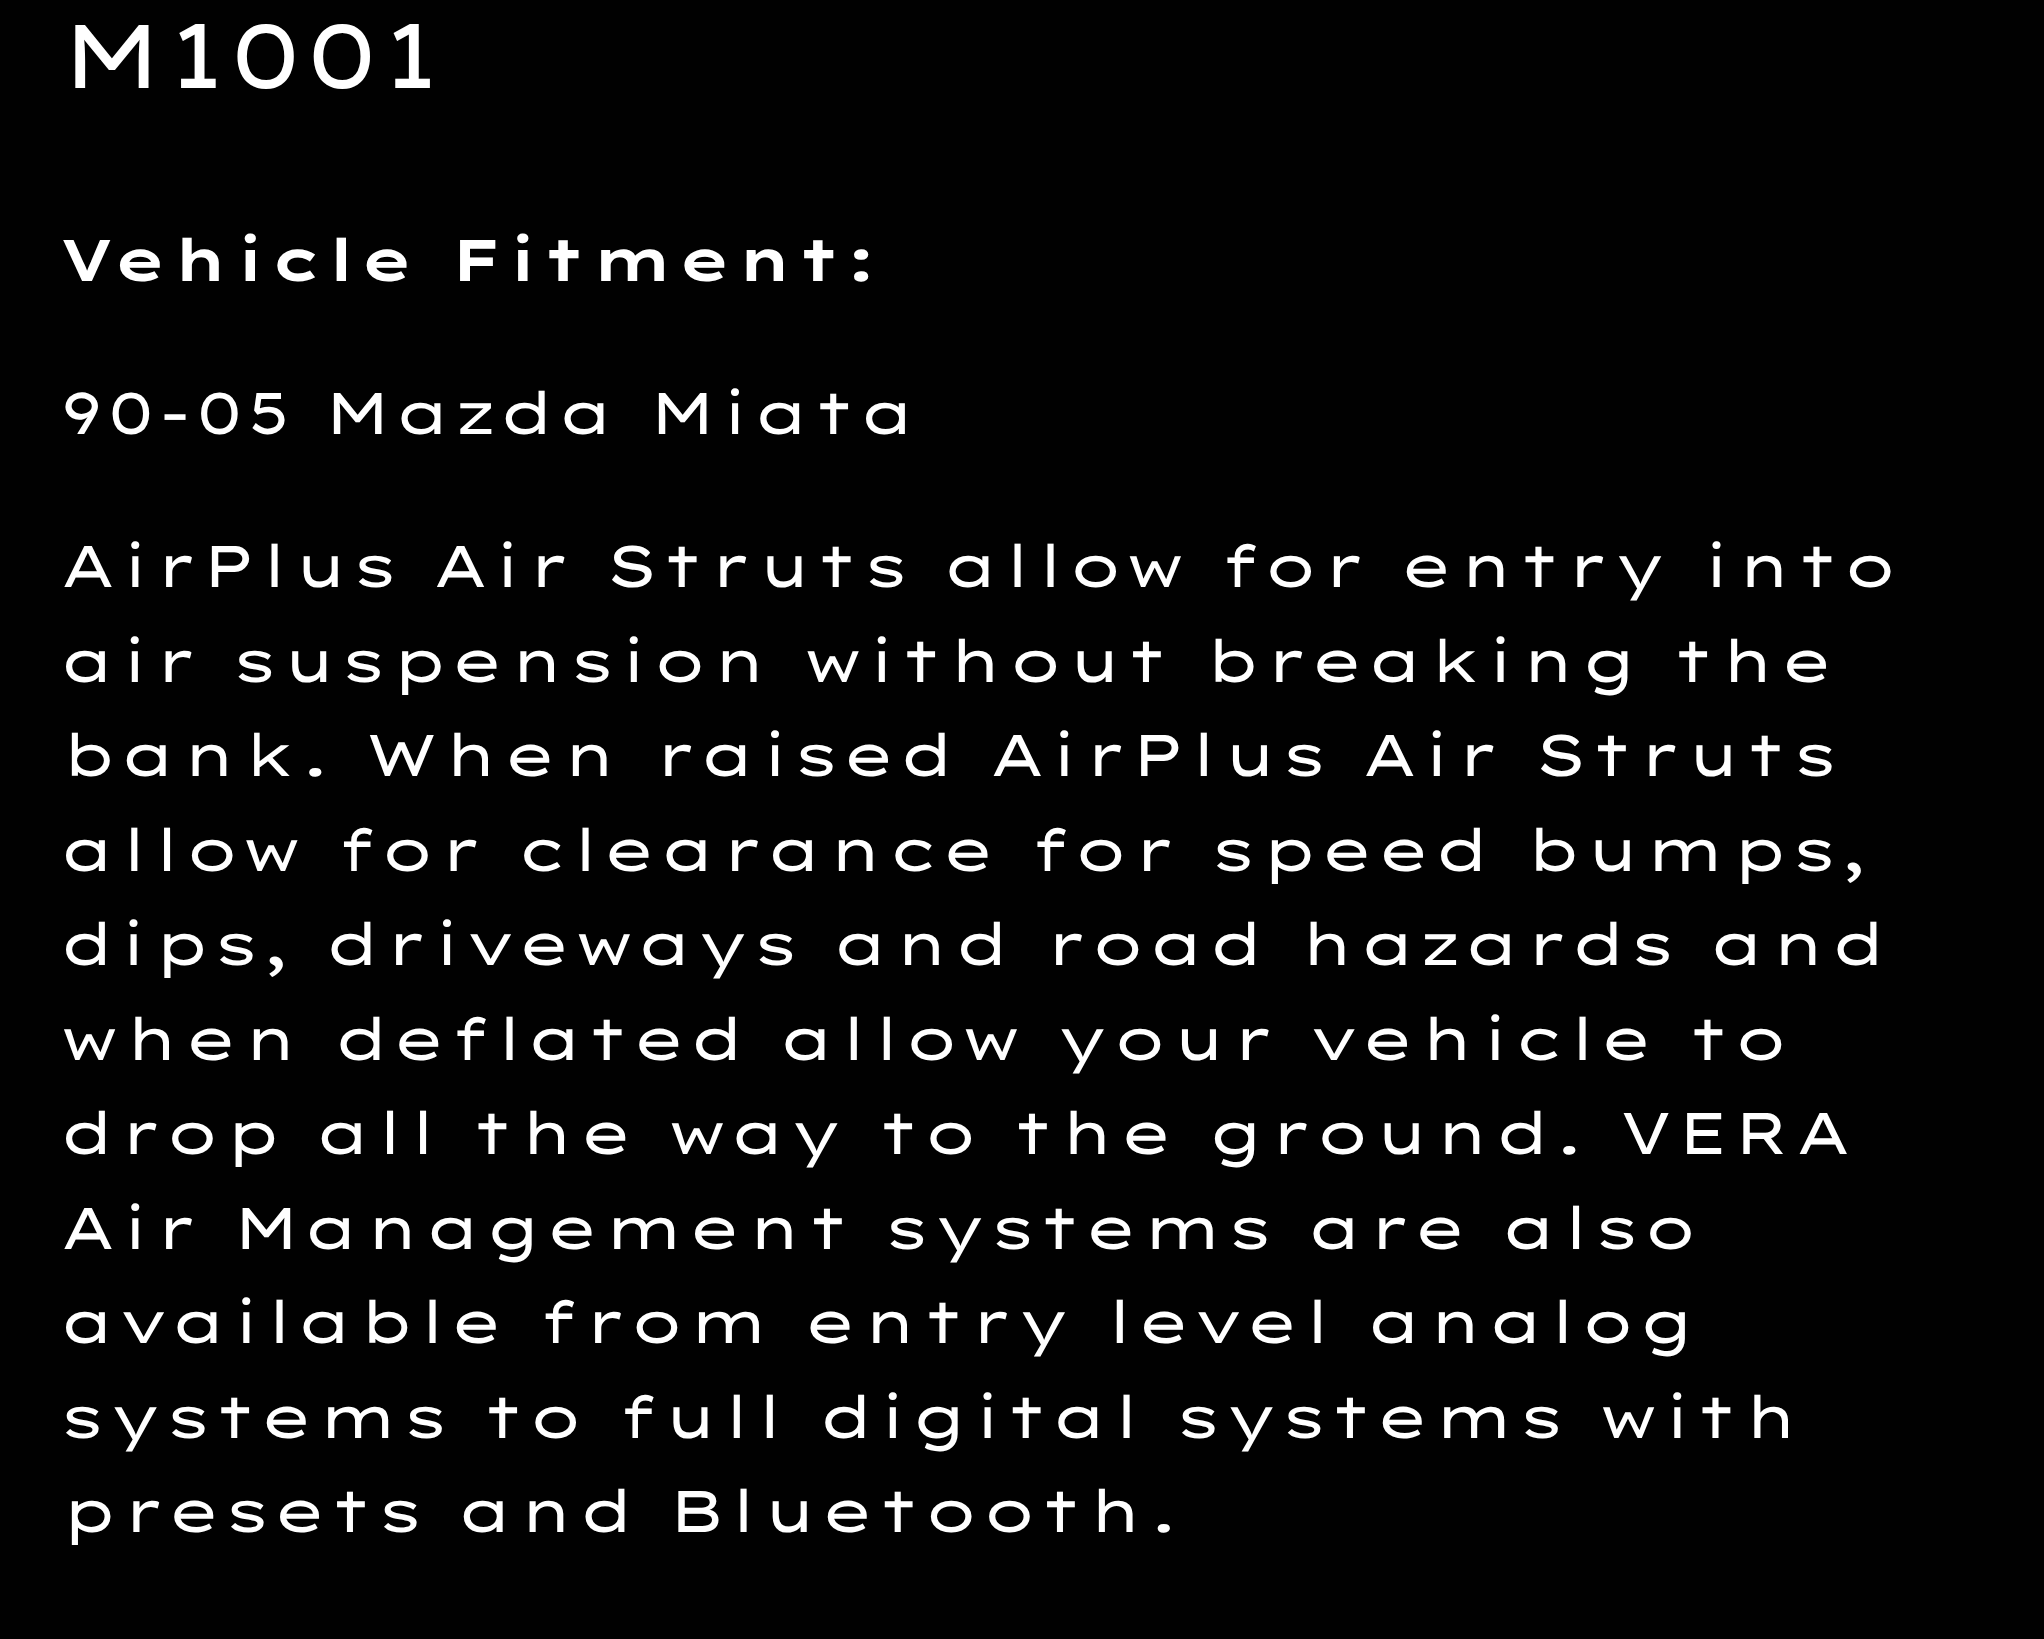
<svg xmlns="http://www.w3.org/2000/svg" width="2044" height="1639">
	<defs>
		<linearGradient id="g1" gradientUnits="userSpaceOnUse" x1="1069" y1="-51" x2="977" y2="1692"><stop offset="0" stop-color="#010101" /><stop offset="1" stop-color="#010101" /><stop offset="1" stop-color="#21F996" /></linearGradient>
	</defs>
	<rect width="100%" height="100%" fill="#FFFFFF" />
	<rect x="0" y="0" width="2044" height="1639" fill="url(#g1)" />
	<text x="59" y="88" font-family="Lexend Zetta" font-size="90" letter-spacing="2" fill="#FFFFFF">M1001</text>
	<text x="59" y="281" font-family="Lexend Zetta" font-size="58.5" font-weight="700" letter-spacing="2.35" fill="#FFFFFF">Vehicle Fitment:</text>
	<g font-family="Lexend Zetta" font-size="58.5" letter-spacing="2.35" fill="#FFFFFF">
		<text x="59" y="434">90-05 Mazda Miata</text>
		<text x="59" y="587">AirPlus Air Struts allow for entry into</text>
		<text x="59" y="682">air suspension without breaking the</text>
		<text x="59" y="776">bank. When raised AirPlus Air Struts</text>
		<text x="59" y="871">allow for clearance for speed bumps,</text>
		<text x="59" y="965">dips, driveways and road hazards and</text>
		<text x="59" y="1060">when deflated allow your vehicle to</text>
		<text x="59" y="1154">drop all the way to the ground. VERA</text>
		<text x="59" y="1249">Air Management systems are also</text>
		<text x="59" y="1343">available from entry level analog</text>
		<text x="59" y="1438">systems to full digital systems with</text>
		<text x="59" y="1532">presets and Bluetooth.</text>
	</g>
</svg>
